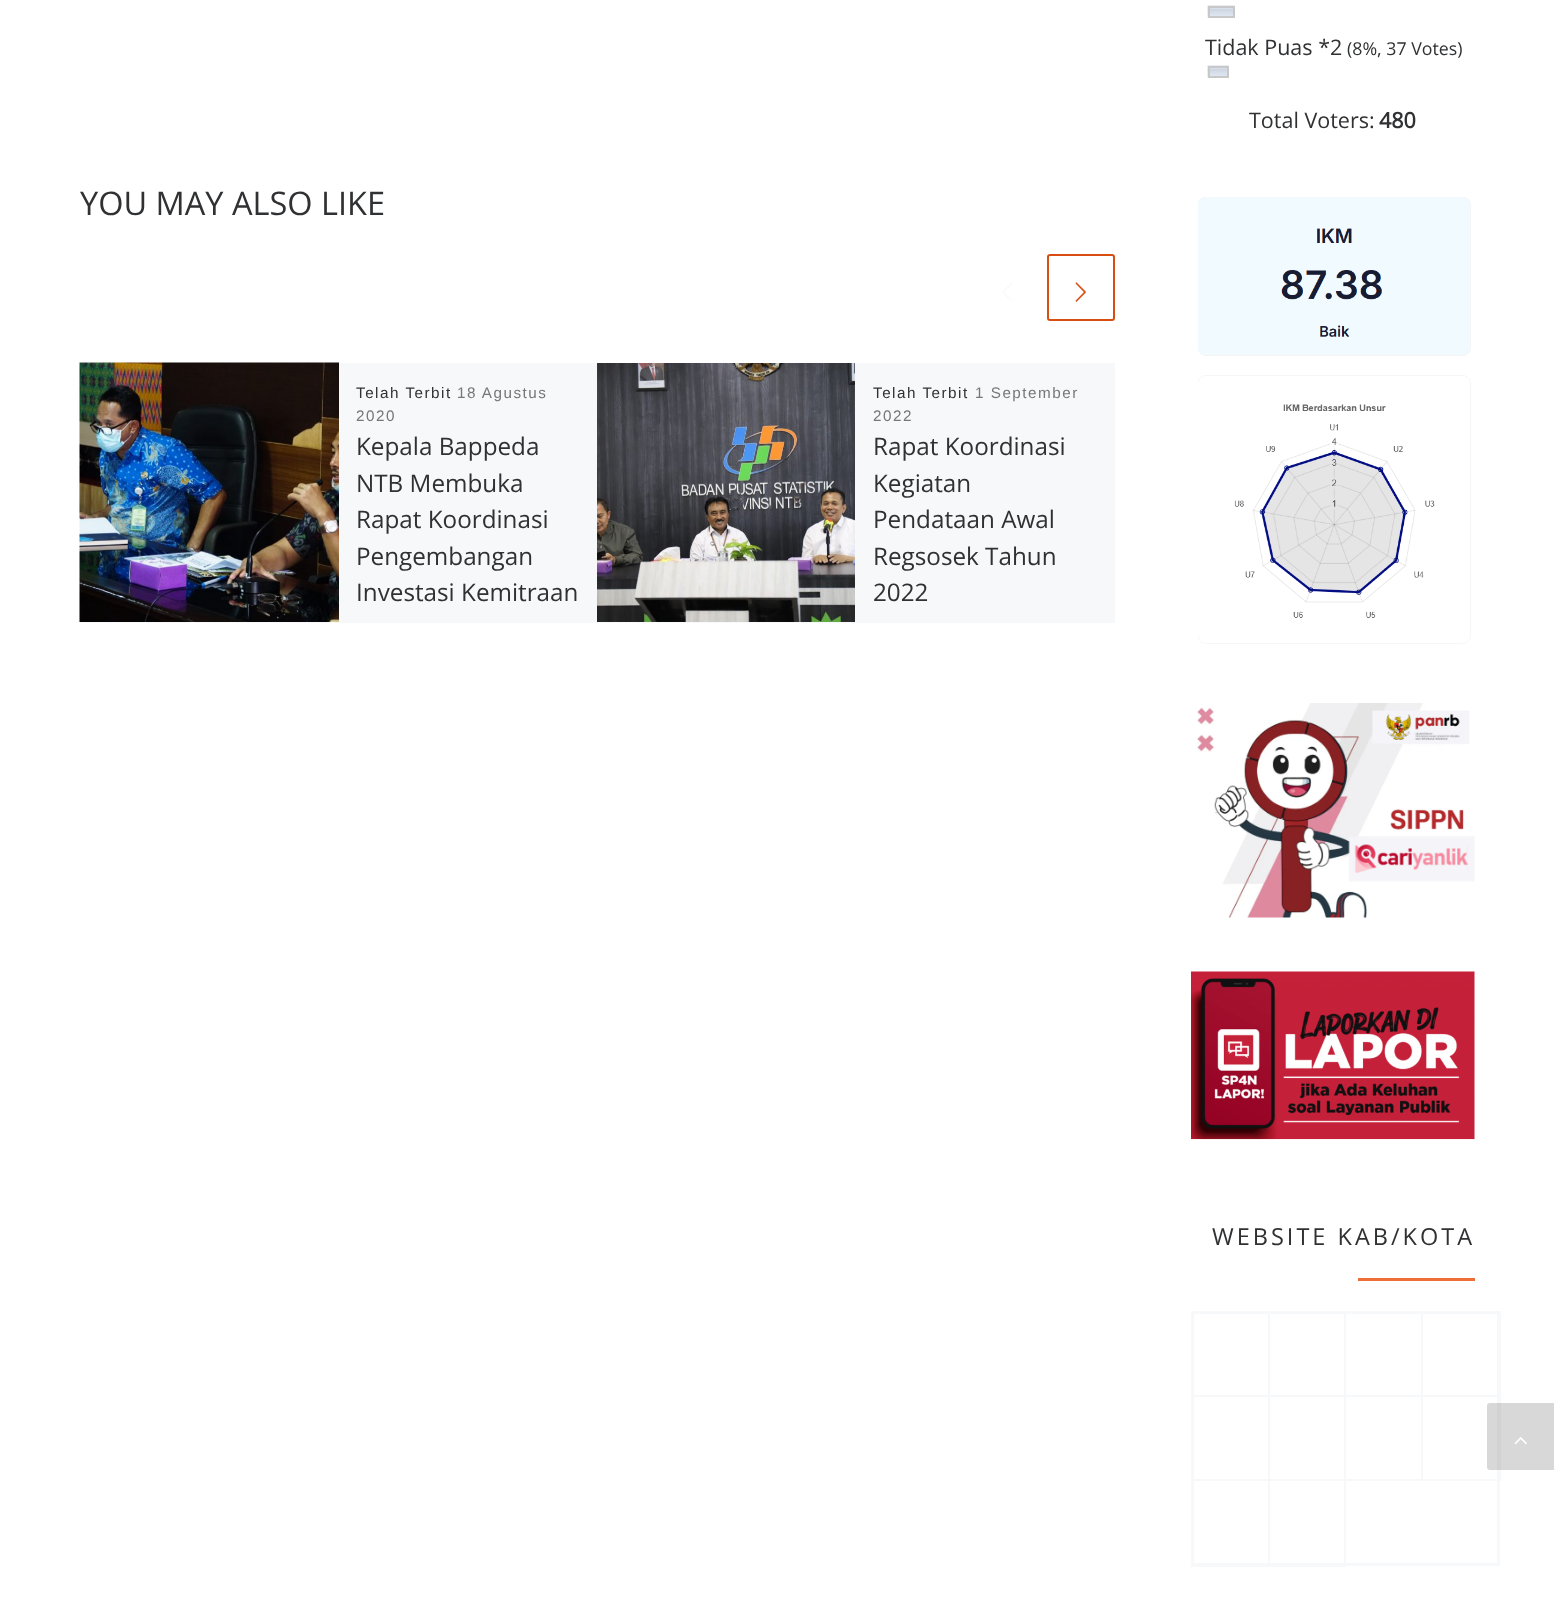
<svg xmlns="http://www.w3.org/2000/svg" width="1554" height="1619">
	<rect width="100%" height="100%" fill="#FFFFFF" />
	<text x="80" y="215" font-family="Open Sans" font-size="32.5" fill="#303133">YOU MAY ALSO LIKE</text>
	<image x="1002" y="283" width="10" height="18" href="assets/img1.png" />
	<rect x="1048" y="255" width="66" height="65" rx="2" fill="none" stroke="#D84D11" stroke-width="2" />
	<image x="1075" y="282" width="11" height="20" href="assets/img2.png" />
	<rect x="80" y="363" width="1035" height="260" fill="#F7F8F9" />
	<image x="79" y="362" width="260" height="260" href="assets/img3.png" />
	<text x="356" y="398" font-family="Liberation Sans" font-size="15.25" letter-spacing="1.5" fill="#303133">Telah Terbit</text>
	<g font-family="Liberation Sans" font-size="15.25" letter-spacing="1.5" fill="#777777">
		<text x="457" y="398">18 Agustus</text>
		<text x="356" y="421">2020</text>
	</g>
	<g font-family="Open Sans" font-size="24.25" fill="#303133">
		<text x="356" y="455">Kepala Bappeda</text>
		<text x="356" y="492">NTB Membuka</text>
		<text x="356" y="528">Rapat Koordinasi</text>
		<text x="356" y="565">Pengembangan</text>
		<text x="356" y="601">Investasi Kemitraan</text>
	</g>
	<image x="597" y="363" width="258" height="259" href="assets/img4.png" />
	<text x="873" y="398" font-family="Liberation Sans" font-size="15.25" letter-spacing="1.5" fill="#303133">Telah Terbit</text>
	<g font-family="Liberation Sans" font-size="15.25" letter-spacing="1.5" fill="#777777">
		<text x="975" y="398">1 September</text>
		<text x="873" y="421">2022</text>
	</g>
	<g font-family="Open Sans" font-size="24.25" fill="#303133">
		<text x="873" y="455">Rapat Koordinasi</text>
		<text x="873" y="492">Kegiatan</text>
		<text x="873" y="528">Pendataan Awal</text>
		<text x="873" y="565">Regsosek Tahun</text>
		<text x="873" y="601">2022</text>
	</g>
	<image x="1207" y="5" width="28" height="13" href="assets/img5.png" />
	<rect x="1209" y="7" width="25" height="10" fill="none" stroke="#C8C8C8" stroke-width="2" />
	<text x="1205" y="55" font-family="Open Sans" font-size="21.5" fill="#303133">Tidak Puas *2</text>
	<text x="1347" y="55" font-family="Open Sans" font-size="17.75" fill="#303133">(8%, 37 Votes)</text>
	<image x="1207" y="65" width="22" height="13" href="assets/img6.png" />
	<rect x="1209" y="67" width="19" height="10" fill="none" stroke="#C8C8C8" stroke-width="2" />
	<text x="1249" y="128" font-family="Open Sans" font-size="21.5" fill="#303133">Total Voters:</text>
	<text x="1379" y="128" font-family="Open Sans" font-size="21.5" font-weight="700" fill="#303133">480</text>
	<image x="1198" y="197" width="273" height="447" href="assets/img7.png" />
	<image x="1197" y="703" width="278" height="215" href="assets/img8.png" />
	<image x="1191" y="971" width="284" height="169" href="assets/img9.png" />
	<text x="1212" y="1245" font-family="Open Sans" font-size="23.5" letter-spacing="3" fill="#303133">WEBSITE KAB/KOTA</text>
	<rect x="1358" y="1278" width="117" height="3" fill="#EF6E37" />
	<rect x="1421" y="1395" width="79" height="2" fill="#F7F8F9" />
	<rect x="1421" y="1479" width="79" height="2" fill="#F7F8F9" />
	<rect x="1421" y="1395" width="2" height="86" fill="#F7F8F9" />
	<rect x="1344" y="1395" width="78" height="2" fill="#F7F8F9" />
	<rect x="1268" y="1479" width="78" height="2" fill="#F7F8F9" />
	<rect x="1344" y="1479" width="2" height="87" fill="#F7F8F9" />
	<rect x="1344" y="1479" width="78" height="2" fill="#F7F8F9" />
	<rect x="1344" y="1395" width="2" height="86" fill="#F7F8F9" />
	<rect x="1268" y="1395" width="78" height="2" fill="#F7F8F9" />
	<rect x="1268" y="1479" width="2" height="87" fill="#F7F8F9" />
	<rect x="1191" y="1479" width="78" height="2" fill="#F7F8F9" />
	<rect x="1268" y="1395" width="2" height="86" fill="#F7F8F9" />
	<rect x="1191" y="1395" width="78" height="2" fill="#F7F8F9" />
	<rect x="1268" y="1311" width="2" height="86" fill="#F7F8F9" />
	<rect x="1344" y="1311" width="2" height="86" fill="#F7F8F9" />
	<rect x="1421" y="1311" width="2" height="86" fill="#F7F8F9" />
	<rect x="1191" y="1311" width="309" height="3" fill="#F7F8F9" />
	<rect x="1497" y="1311" width="3" height="255" fill="#F7F8F9" />
	<rect x="1191" y="1563" width="309" height="3" fill="#F7F8F9" />
	<rect x="1191" y="1311" width="3" height="255" fill="#F7F8F9" />
	<rect x="1500" y="1311" width="1" height="170" fill="#F7F8F9" />
	<rect x="1191" y="1566" width="155" height="1" fill="#F7F8F9" />
	<rect x="1487" y="1403" width="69" height="67" rx="3" fill="#3B3B3B" fill-opacity="0.2" />
	<image x="1514" y="1437" width="13" height="8" href="assets/img10.png" />
</svg>
